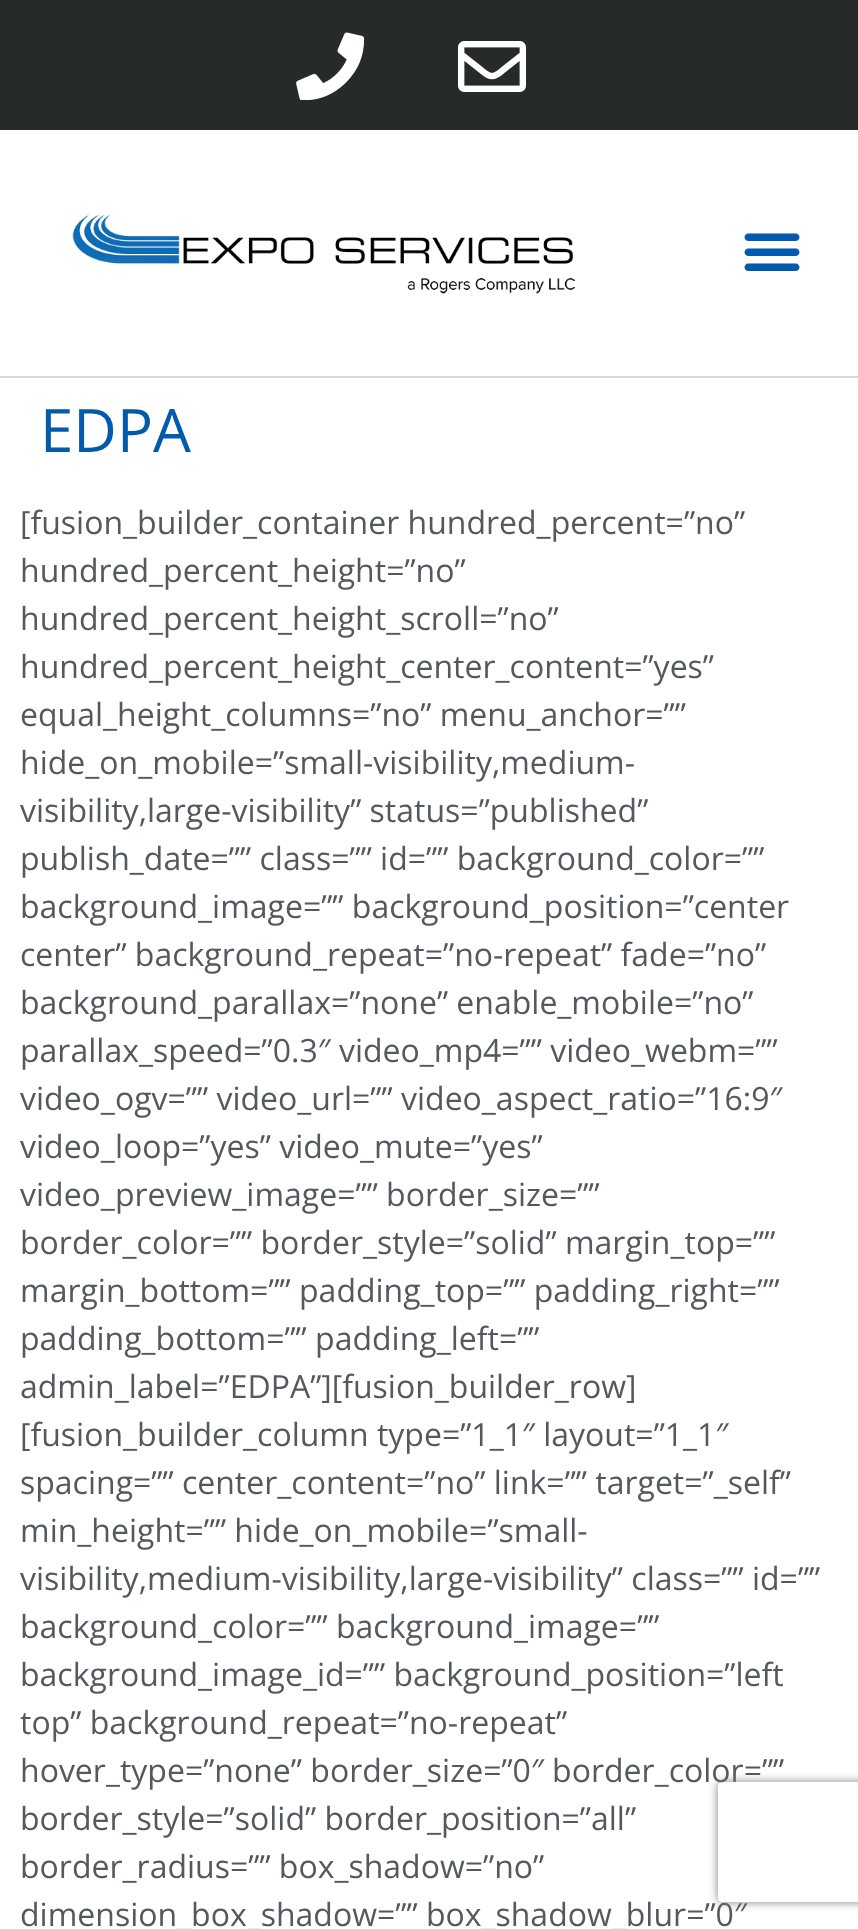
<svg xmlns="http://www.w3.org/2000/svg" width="858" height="1929">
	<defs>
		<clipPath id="clip1"><path d="M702 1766H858V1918H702ZM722 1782H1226C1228 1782 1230 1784 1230 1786V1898C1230 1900 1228 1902 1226 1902H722C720 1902 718 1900 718 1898V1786C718 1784 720 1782 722 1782Z" clip-rule="evenodd" /></clipPath>
	</defs>
	<rect width="100%" height="100%" fill="#FFFFFF" />
	<rect x="0" y="0" width="858" height="130" fill="#262A2B" />
	<image x="296" y="32" width="69" height="68" href="assets/img1.png" />
	<image x="458" y="41" width="68" height="51" href="assets/img2.png" />
	<rect x="0" y="376" width="858" height="2" fill="#D8D8D8" />
	<image x="72" y="214" width="504" height="80" href="assets/img3.png" />
	<image x="744" y="233" width="56" height="38" href="assets/img4.png" />
	<text x="40" y="452" font-family="Open Sans" font-size="60" fill="#025AAC">EDPA</text>
	<g font-family="Open Sans" font-size="32" fill="#54595F">
		<text x="20" y="534">[fusion_builder_container hundred_percent=”no”</text>
		<text x="20" y="582">hundred_percent_height=”no”</text>
		<text x="20" y="630">hundred_percent_height_scroll=”no”</text>
		<text x="20" y="678">hundred_percent_height_center_content=”yes”</text>
		<text x="20" y="726">equal_height_columns=”no” menu_anchor=””</text>
		<text x="20" y="774">hide_on_mobile=”small-visibility,medium-</text>
		<text x="20" y="822">visibility,large-visibility” status=”published”</text>
		<text x="20" y="870">publish_date=”” class=”” id=”” background_color=””</text>
		<text x="20" y="918">background_image=”” background_position=”center</text>
		<text x="20" y="966">center” background_repeat=”no-repeat” fade=”no”</text>
		<text x="20" y="1014">background_parallax=”none” enable_mobile=”no”</text>
		<text x="20" y="1062">parallax_speed=”0.3″ video_mp4=”” video_webm=””</text>
		<text x="20" y="1110">video_ogv=”” video_url=”” video_aspect_ratio=”16:9″</text>
		<text x="20" y="1158">video_loop=”yes” video_mute=”yes”</text>
		<text x="20" y="1206">video_preview_image=”” border_size=””</text>
		<text x="20" y="1254">border_color=”” border_style=”solid” margin_top=””</text>
		<text x="20" y="1302">margin_bottom=”” padding_top=”” padding_right=””</text>
		<text x="20" y="1350">padding_bottom=”” padding_left=””</text>
		<text x="20" y="1398">admin_label=”EDPA”][fusion_builder_row]</text>
		<text x="20" y="1446">[fusion_builder_column type=”1_1″ layout=”1_1″</text>
		<text x="20" y="1494">spacing=”” center_content=”no” link=”” target=”_self”</text>
		<text x="20" y="1542">min_height=”” hide_on_mobile=”small-</text>
		<text x="20" y="1590">visibility,medium-visibility,large-visibility” class=”” id=””</text>
		<text x="20" y="1638">background_color=”” background_image=””</text>
		<text x="20" y="1686">background_image_id=”” background_position=”left</text>
		<text x="20" y="1734">top” background_repeat=”no-repeat”</text>
		<text x="20" y="1782">hover_type=”none” border_size=”0″ border_color=””</text>
		<text x="20" y="1830">border_style=”solid” border_position=”all”</text>
		<text x="20" y="1878">border_radius=”” box_shadow=”no”</text>
		<text x="20" y="1926">dimension_box_shadow=”” box_shadow_blur=”0″</text>
	</g>
	<g clip-path="url(#clip1)">
		<rect x="718" y="1782" width="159" height="120" rx="4" fill="#808080" filter="blur(5px)" />
	</g>
</svg>
